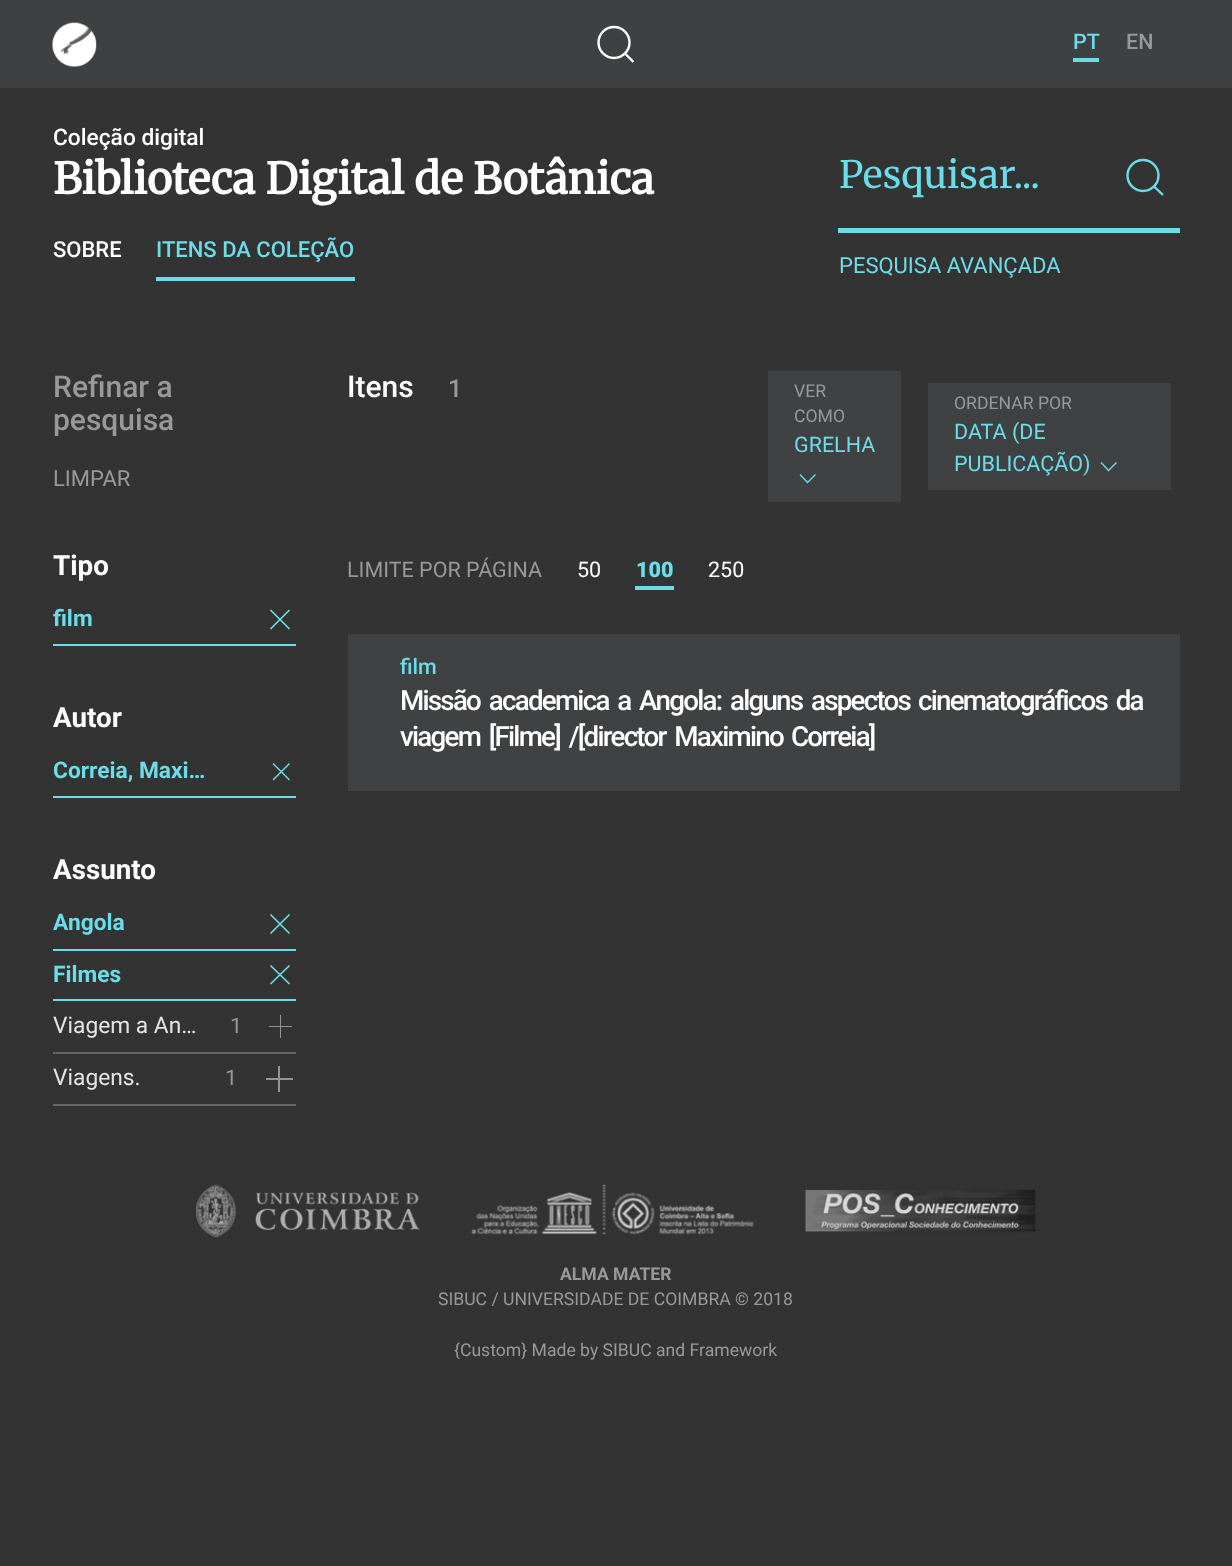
<svg xmlns="http://www.w3.org/2000/svg" width="1232" height="1566">
	<defs>
		<clipPath id="clip1"><rect x="53" y="604" width="159" height="31" /></clipPath>
	</defs>
	<rect width="100%" height="100%" fill="#333333" />
	<rect x="0" y="0" width="1232" height="88" fill="#3F4041" />
	<image x="52" y="22" width="45" height="45" href="assets/img1.png" />
	<circle cx="614" cy="42.5" r="15.5" fill="none" stroke="#FFFFFF" stroke-width="2.4" />
	<path d="M625 53.5L633.5 62Z" fill="none" stroke="#FFFFFF" stroke-width="2.4" />
	<rect x="1073" y="58" width="26" height="4" fill="#6BDDE8" />
	<text x="1073" y="49" font-family="Roboto" font-size="21.5" font-weight="500" fill="#6BDDE8">PT</text>
	<text x="1126" y="49" font-family="Roboto" font-size="21.5" font-weight="500" fill="#999999">EN</text>
	<text x="53" y="145" font-family="Roboto" font-size="22.75" font-weight="500" fill="#FFFFFF">Coleção digital</text>
	<text x="53" y="194" font-family="Merriweather" font-size="42.8" font-weight="700" fill="#FFFFFF">Biblioteca Digital de Botânica</text>
	<text x="53" y="257" font-family="Roboto" font-size="22" font-weight="500" fill="#FFFFFF">SOBRE</text>
	<rect x="156" y="277" width="199" height="4" fill="#6BDDE8" />
	<text x="156" y="257" font-family="Roboto" font-size="22" font-weight="500" fill="#6BDDE8">ITENS DA COLEÇÃO</text>
	<rect x="838" y="228" width="342" height="5" fill="#6BDDE8" />
	<text x="839" y="188" font-family="Merriweather" font-size="37.75" font-weight="300" fill="#6BDDE8">Pesquisar...</text>
	<circle cx="1143" cy="175.5" r="15.5" fill="none" stroke="#6BDDE8" stroke-width="2.4" />
	<path d="M1154 186.5L1163 195Z" fill="none" stroke="#6BDDE8" stroke-width="2.4" />
	<text x="839" y="273" font-family="Roboto" font-size="22" fill="#6BDDE8">PESQUISA AVANÇADA</text>
	<g font-family="Roboto" font-size="30" font-weight="500" fill="#999999">
		<text x="53" y="397">Refinar a</text>
		<text x="53" y="430">pesquisa</text>
	</g>
	<text x="53" y="486" font-family="Roboto" font-size="22" fill="#999999">LIMPAR</text>
	<text x="53" y="575" font-family="Roboto" font-size="27.75" font-weight="700" fill="#FFFFFF">Tipo</text>
	<rect x="53" y="644" width="243" height="2" fill="#6BDDE8" />
	<g clip-path="url(#clip1)">
		<text x="53" y="626" font-family="Roboto" font-size="22.75" font-weight="700" fill="#6BDDE8">film</text>
	</g>
	<path d="M289.5 629L270.5 610M289.5 610L270.5 629" fill="none" stroke="#6BDDE8" stroke-width="1.7" />
	<text x="53" y="727" font-family="Roboto" font-size="27.75" font-weight="700" fill="#FFFFFF">Autor</text>
	<rect x="53" y="796" width="243" height="2" fill="#6BDDE8" />
	<text x="53" y="778" font-family="Roboto" font-size="22.75" font-weight="700" fill="#6BDDE8">Correia, Maxi…</text>
	<path d="M289.5 780L273 763.5M289.5 763.5L273 780" fill="none" stroke="#6BDDE8" stroke-width="1.5" />
	<text x="53" y="879" font-family="Roboto" font-size="27.75" font-weight="700" fill="#FFFFFF">Assunto</text>
	<rect x="53" y="949" width="243" height="2" fill="#6BDDE8" />
	<text x="53" y="930" font-family="Roboto" font-size="22.75" font-weight="700" fill="#6BDDE8">Angola</text>
	<path d="M289.5 933.5L270.5 914.5M289.5 914.5L270.5 933.5" fill="none" stroke="#6BDDE8" stroke-width="1.7" />
	<rect x="53" y="999" width="243" height="2" fill="#6BDDE8" />
	<text x="53" y="982" font-family="Roboto" font-size="22.75" font-weight="700" fill="#6BDDE8">Filmes</text>
	<path d="M289.5 984L270.5 965.5M289.5 965.5L270.5 984" fill="none" stroke="#6BDDE8" stroke-width="1.7" />
	<rect x="53" y="1052" width="243" height="2" fill="#656565" />
	<text x="53" y="1033" font-family="Roboto" font-size="22.75" fill="#E5E5E5">Viagem a An…</text>
	<text x="230" y="1033" font-family="Roboto" font-size="21.5" fill="#999999">1</text>
	<rect x="280" y="1015" width="1" height="23" fill="#959595" />
	<rect x="269" y="1026" width="23" height="1" fill="#959595" />
	<rect x="53" y="1104" width="243" height="2" fill="#656565" />
	<text x="53" y="1085" font-family="Roboto" font-size="22.75" fill="#E5E5E5">Viagens.</text>
	<text x="225" y="1085" font-family="Roboto" font-size="21.5" fill="#999999">1</text>
	<rect x="278" y="1066" width="2" height="26" fill="#959595" />
	<rect x="266" y="1078" width="27" height="2" fill="#959595" />
	<text x="347" y="397" font-family="Roboto" font-size="30" font-weight="500" fill="#FFFFFF">Itens</text>
	<text x="448" y="397" font-family="Roboto" font-size="25" font-weight="500" fill="#999999">1</text>
	<rect x="768" y="371" width="133" height="131" fill="#404142" />
	<g font-family="Roboto" font-size="17.6" fill="#999999">
		<text x="794" y="397">VER</text>
		<text x="794" y="422">COMO</text>
	</g>
	<text x="794" y="452" font-family="Roboto" font-size="21.5" fill="#6BDDE8">GRELHA</text>
	<path d="M815.5 474.5L807.5 482.5L800 474.5" fill="none" stroke="#6BDDE8" stroke-width="1.4" />
	<rect x="928" y="383" width="243" height="107" fill="#404142" />
	<text x="954" y="409" font-family="Roboto" font-size="17.6" fill="#999999">ORDENAR POR</text>
	<g font-family="Roboto" font-size="21.5" fill="#6BDDE8">
		<text x="954" y="439">DATA (DE</text>
		<text x="954" y="471">PUBLICAÇÃO)</text>
	</g>
	<path d="M1116.5 462.5L1108.5 470.5L1101 462.5" fill="none" stroke="#6BDDE8" stroke-width="1.4" />
	<text x="347" y="577" font-family="Roboto" font-size="21.5" fill="#999999">LIMITE POR PÁGINA</text>
	<text x="577" y="577" font-family="Roboto" font-size="21.5" fill="#FFFFFF">50</text>
	<rect x="635" y="586" width="39" height="4" fill="#6BDDE8" />
	<text x="636" y="577" font-family="Roboto" font-size="21.5" font-weight="900" fill="#6BDDE8">100</text>
	<text x="708" y="577" font-family="Roboto" font-size="21.5" fill="#FFFFFF">250</text>
	<rect x="348" y="634" width="832" height="157" fill="#404142" />
	<text x="400" y="674" font-family="Roboto" font-size="21.5" font-weight="500" fill="#6BDDE8">film</text>
	<g font-family="Roboto" font-size="27.75" font-weight="500" letter-spacing="-1.75" fill="#FFFFFF">
		<text x="400" y="710" word-spacing="3.5">Missão academica a Angola: alguns aspectos</text>
		<text x="918" y="710" word-spacing="3.5">cinematográficos da</text>
		<text x="400" y="746" word-spacing="3.5">viagem [Filme] /[director Maximino</text>
		<text x="791" y="746">Correia]</text>
	</g>
	<image x="196" y="1184" width="840" height="54" href="assets/img2.png" />
	<text x="560" y="1280" font-family="Roboto" font-size="17.6" font-weight="700" fill="#999999">ALMA MATER</text>
	<g font-family="Roboto" font-size="17.6" fill="#999999">
		<text x="438" y="1305">SIBUC / UNIVERSIDADE DE COIMBRA © 2018</text>
		<text x="454" y="1356">{Custom} Made by SIBUC and Framework</text>
	</g>
</svg>
